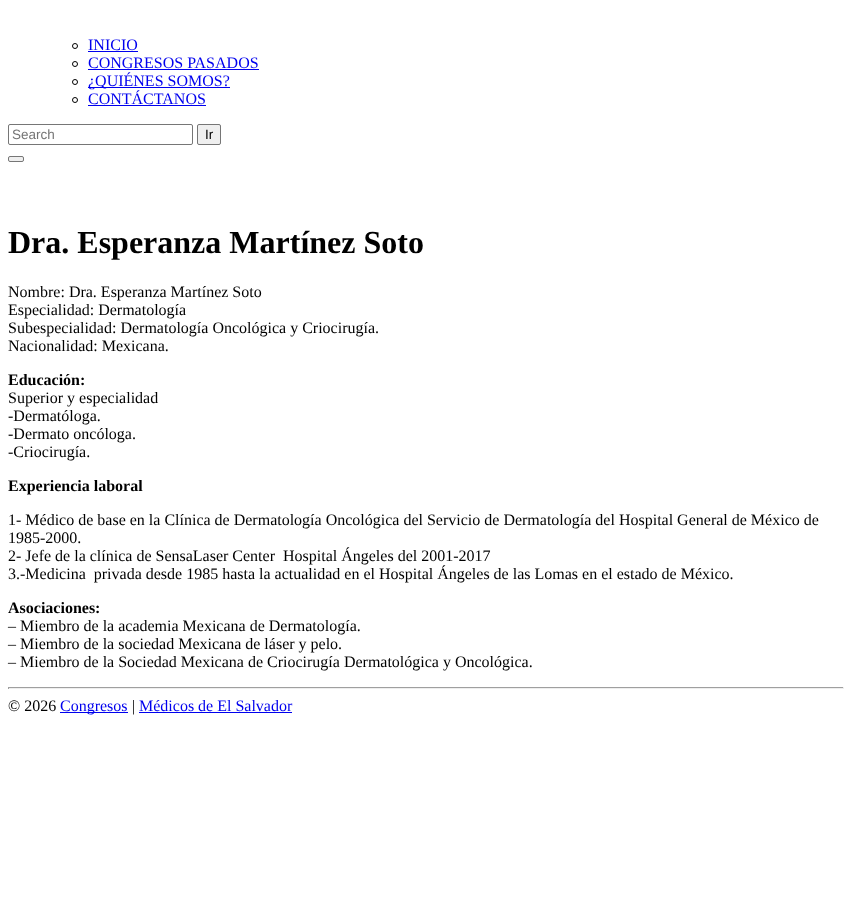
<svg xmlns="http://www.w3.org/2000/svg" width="852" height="921">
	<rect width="100%" height="100%" fill="#FFFFFF" />
	<circle cx="75" cy="46" r="2.5" fill="none" stroke="#000000" />
	<text x="88" y="50" font-family="Liberation Serif" font-size="16" fill="#0000EE">INICIO</text>
	<rect x="88" y="51" width="50" height="1" fill="#0000EE" />
	<circle cx="75" cy="64" r="2.5" fill="none" stroke="#000000" />
	<text x="88" y="68" font-family="Liberation Serif" font-size="16" fill="#0000EE">CONGRESOS PASADOS</text>
	<rect x="88" y="69" width="171" height="1" fill="#0000EE" />
	<circle cx="75" cy="82" r="2.5" fill="none" stroke="#000000" />
	<rect x="88" y="87" width="142" height="1" fill="#0000EE" />
	<text x="88" y="86" font-family="Liberation Serif" font-size="16" fill="#0000EE">¿QUIÉNES SOMOS?</text>
	<circle cx="75" cy="100" r="2.5" fill="none" stroke="#000000" />
	<text x="88" y="104" font-family="Liberation Serif" font-size="16" fill="#0000EE">CONTÁCTANOS</text>
	<rect x="88" y="105" width="118" height="1" fill="#0000EE" />
	<rect x="8.5" y="124.5" width="184" height="20" rx="1.5" fill="none" stroke="#767676" />
	<text x="12" y="139" font-family="Liberation Sans" font-size="13.5" fill="#757575">Search</text>
	<rect x="197.5" y="124.5" width="23" height="20" rx="1.5" fill="#EFEFEF" stroke="#767676" />
	<text x="205" y="139" font-family="Liberation Sans" font-size="13.5" fill="#000000">Ir</text>
	<rect x="8.5" y="156.5" width="15" height="5" rx="1.5" fill="#EFEFEF" stroke="#767676" />
	<text x="8" y="253" font-family="Liberation Serif" font-size="32" font-weight="700" fill="#000000">Dra. Esperanza Martínez Soto</text>
	<g font-family="Liberation Serif" font-size="16" fill="#000000">
		<text x="8" y="297">Nombre: Dra. Esperanza Martínez Soto</text>
		<text x="8" y="315">Especialidad: Dermatología</text>
		<text x="8" y="333">Subespecialidad: Dermatología Oncológica y Criocirugía.</text>
		<text x="8" y="351">Nacionalidad: Mexicana.</text>
	</g>
	<text x="8" y="385" font-family="Liberation Serif" font-size="16" font-weight="700" fill="#000000">Educación:</text>
	<g font-family="Liberation Serif" font-size="16" fill="#000000">
		<text x="8" y="403">Superior y especialidad</text>
		<text x="8" y="421">-Dermatóloga.</text>
		<text x="8" y="439">-Dermato oncóloga.</text>
		<text x="8" y="457">-Criocirugía.</text>
	</g>
	<text x="8" y="491" font-family="Liberation Serif" font-size="16" font-weight="700" fill="#000000">Experiencia laboral</text>
	<g font-family="Liberation Serif" font-size="16" fill="#000000">
		<text x="8" y="525">1- Médico de base en la Clínica de Dermatología Oncológica del Servicio de Dermatología del Hospital General de México de</text>
		<text x="8" y="543">1985-2000.</text>
		<text x="8" y="561" xml:space="preserve">2- Jefe de la clínica de SensaLaser Center  Hospital Ángeles del 2001-2017</text>
		<text x="8" y="579" xml:space="preserve">3.-Medicina  privada desde 1985 hasta la actualidad en el Hospital Ángeles de las Lomas en el estado de México.</text>
	</g>
	<text x="8" y="613" font-family="Liberation Serif" font-size="16" font-weight="700" fill="#000000">Asociaciones:</text>
	<g font-family="Liberation Serif" font-size="16" fill="#000000">
		<text x="8" y="631">– Miembro de la academia Mexicana de Dermatología.</text>
		<text x="8" y="649">– Miembro de la sociedad Mexicana de láser y pelo.</text>
		<text x="8" y="667">– Miembro de la Sociedad Mexicana de Criocirugía Dermatológica y Oncológica.</text>
	</g>
	<rect x="8" y="687" width="836" height="1" fill="#9F9F9F" />
	<rect x="843" y="687" width="1" height="2" fill="#EEEEEE" />
	<rect x="8" y="688" width="836" height="1" fill="#EEEEEE" />
	<rect x="8" y="687" width="1" height="2" fill="#9F9F9F" />
	<text x="8" y="711" font-family="Liberation Serif" font-size="16" fill="#000000">© 2026</text>
	<rect x="60" y="712" width="68" height="1" fill="#0000EE" />
	<text x="60" y="711" font-family="Liberation Serif" font-size="16" fill="#0000EE">Congresos</text>
	<text x="132" y="711" font-family="Liberation Serif" font-size="16" fill="#000000">|</text>
	<text x="139" y="711" font-family="Liberation Serif" font-size="16" fill="#0000EE">Médicos de El Salvador</text>
	<rect x="139" y="712" width="153" height="1" fill="#0000EE" />
</svg>
